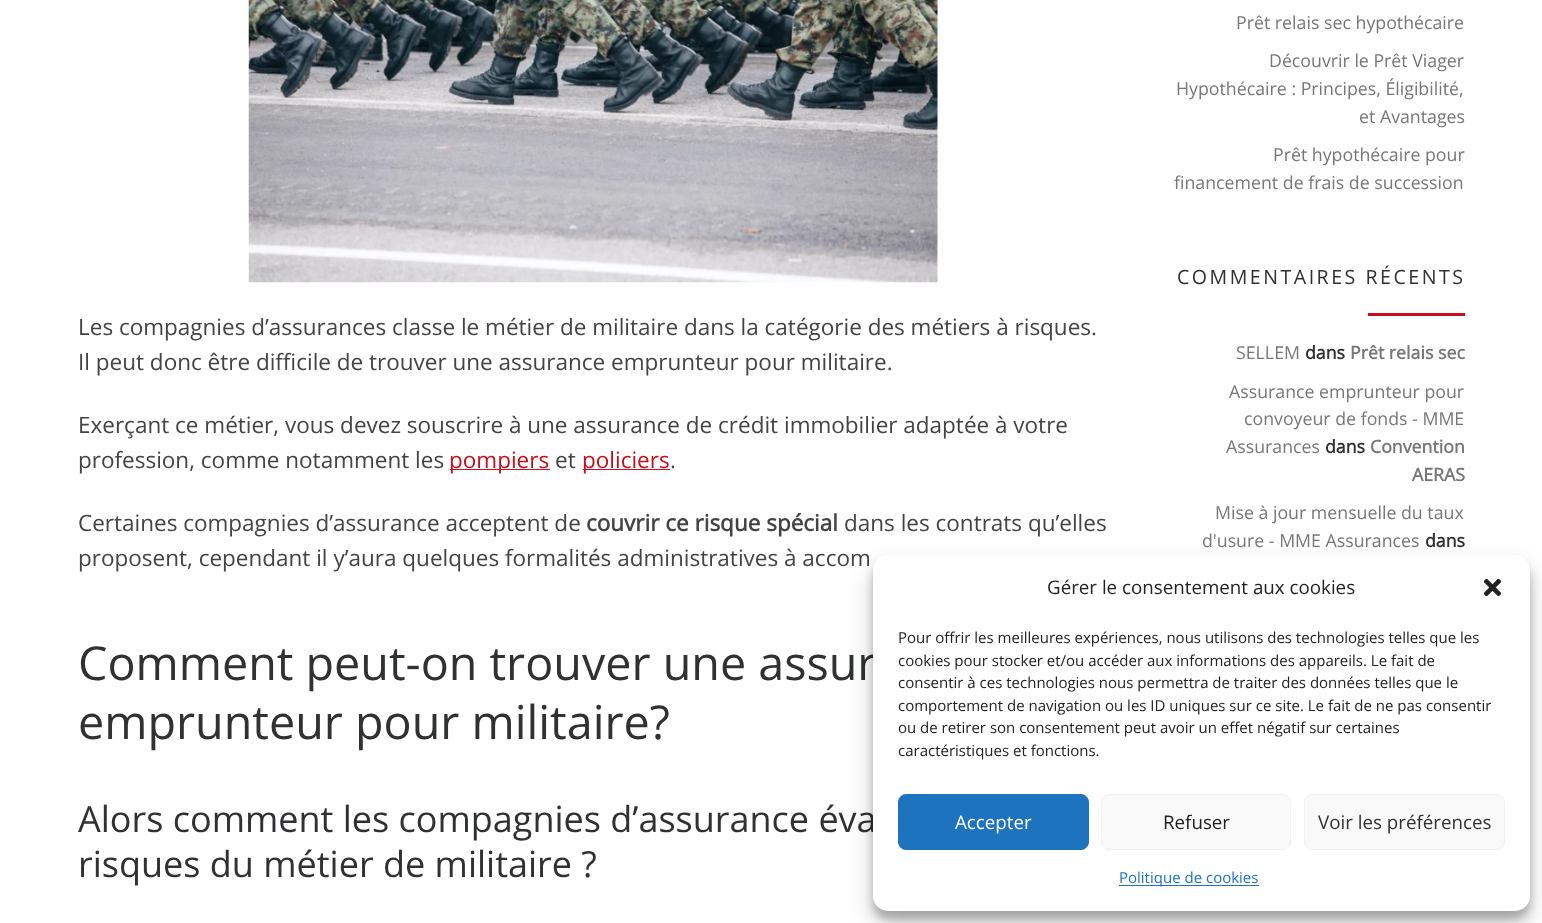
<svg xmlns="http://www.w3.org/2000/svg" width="1542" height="923">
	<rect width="100%" height="100%" fill="#FFFFFF" />
	<image x="248" y="0" width="690" height="283" href="assets/img1.png" />
	<g font-family="Open Sans" font-size="22.5" fill="#444444">
		<text x="78" y="335">Les compagnies d’assurances classe le métier de militaire dans la catégorie des métiers à risques.</text>
		<text x="78" y="370">Il peut donc être difficile de trouver une assurance emprunteur pour militaire.</text>
		<text x="78" y="433">Exerçant ce métier, vous devez souscrire à une assurance de crédit immobilier adaptée à votre</text>
		<text x="78" y="468">profession, comme notamment les</text>
	</g>
	<rect x="450" y="469" width="100" height="1" fill="#C90D1A" />
	<text x="449" y="468" font-family="Open Sans" font-size="22.5" fill="#C90D1A">pompiers</text>
	<text x="555" y="468" font-family="Open Sans" font-size="22.5" fill="#444444">et</text>
	<rect x="583" y="469" width="87" height="1" fill="#C90D1A" />
	<text x="582" y="468" font-family="Open Sans" font-size="22.5" fill="#C90D1A">policiers</text>
	<g font-family="Open Sans" font-size="22.5" fill="#444444">
		<text x="670" y="468">.</text>
		<text x="78" y="531">Certaines compagnies d’assurance acceptent de</text>
	</g>
	<text x="586" y="531" font-family="Open Sans" font-size="22.5" font-weight="700" fill="#444444">couvrir ce risque spécial</text>
	<g font-family="Open Sans" font-size="22.5" fill="#444444">
		<text x="844" y="531">dans les contrats qu’elles</text>
		<text x="78" y="566">proposent, cependant il y’aura quelques formalités administratives à accom</text>
	</g>
	<g font-family="Open Sans" font-size="46.7" fill="#303133">
		<text x="78" y="680">Comment peut-on trouver une assur</text>
		<text x="78" y="739">emprunteur pour militaire?</text>
	</g>
	<g font-family="Open Sans" font-size="36" fill="#303133">
		<text x="78" y="832">Alors comment les compagnies d’assurance éva</text>
		<text x="78" y="877">risques du métier de militaire ?</text>
	</g>
	<g font-family="Open Sans" font-size="17.75" fill="#777777">
		<text x="1236" y="29">Prêt relais sec hypothécaire</text>
		<text x="1269" y="67">Découvrir le Prêt Viager</text>
		<text x="1176" y="95">Hypothécaire : Principes, Éligibilité,</text>
		<text x="1359" y="123">et Avantages</text>
		<text x="1273" y="161">Prêt hypothécaire pour</text>
		<text x="1174" y="189">financement de frais de succession</text>
	</g>
	<text x="1177" y="284" font-family="Open Sans" font-size="19.6" letter-spacing="2.5" fill="#303133">COMMENTAIRES RÉCENTS</text>
	<rect x="1368" y="313" width="97" height="3" fill="#C90D1A" />
	<text x="1236" y="359" font-family="Open Sans" font-size="17.75" fill="#777777">SELLEM</text>
	<text x="1305" y="359" font-family="Open Sans" font-size="17.75" font-weight="700" fill="#303133">dans</text>
	<text x="1350" y="359" font-family="Open Sans" font-size="17.75" font-weight="700" fill="#777777">Prêt relais sec</text>
	<g font-family="Open Sans" font-size="17.75" fill="#777777">
		<text x="1229" y="398">Assurance emprunteur pour</text>
		<text x="1244" y="425">convoyeur de fonds - MME</text>
		<text x="1226" y="453">Assurances</text>
	</g>
	<text x="1325" y="453" font-family="Open Sans" font-size="17.75" font-weight="700" fill="#303133">dans</text>
	<g font-family="Open Sans" font-size="17.75" font-weight="700" fill="#777777">
		<text x="1370" y="453">Convention</text>
		<text x="1412" y="481">AERAS</text>
	</g>
	<g font-family="Open Sans" font-size="17.75" fill="#777777">
		<text x="1215" y="519">Mise à jour mensuelle du taux</text>
		<text x="1202" y="547">d'usure - MME Assurances</text>
	</g>
	<text x="1425" y="547" font-family="Open Sans" font-size="17.75" font-weight="700" fill="#303133">dans</text>
	<rect x="873" y="563" width="657" height="356" rx="15" fill="#000000" fill-opacity="0.23" filter="blur(4px)" />
	<rect x="873" y="568" width="657" height="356" rx="15" fill="#000000" fill-opacity="0.19" filter="blur(12.5px)" />
	<rect x="873" y="555" width="657" height="356" rx="15" fill="#FFFFFF" />
	<text x="1047" y="594" font-family="Open Sans" font-size="18.75" fill="#222222">Gérer le consentement aux cookies</text>
	<image x="1483" y="578" width="19" height="19" href="assets/img2.png" />
	<g font-family="Open Sans" font-size="15" fill="#222222">
		<text x="898" y="643">Pour offrir les meilleures expériences, nous utilisons des technologies telles que les</text>
		<text x="898" y="666">cookies pour stocker et/ou accéder aux informations des appareils. Le fait de</text>
		<text x="898" y="688">consentir à ces technologies nous permettra de traiter des données telles que le</text>
		<text x="898" y="711">comportement de navigation ou les ID uniques sur ce site. Le fait de ne pas consentir</text>
		<text x="898" y="733">ou de retirer son consentement peut avoir un effet négatif sur certaines</text>
		<text x="898" y="756">caractéristiques et fonctions.</text>
	</g>
	<rect x="898.5" y="794.5" width="190" height="55" rx="7.5" fill="#1E73BE" stroke="#1E73BE" />
	<text x="955" y="829" font-family="Open Sans" font-size="18.75" fill="#FFFFFF">Accepter</text>
	<rect x="1101.5" y="794.5" width="189" height="55" rx="7.5" fill="#F9F9F9" stroke="#F2F2F2" />
	<text x="1163" y="829" font-family="Open Sans" font-size="18.75" fill="#222222">Refuser</text>
	<rect x="1304.5" y="794.5" width="200" height="55" rx="7.5" fill="#F9F9F9" stroke="#F2F2F2" />
	<text x="1318" y="829" font-family="Open Sans" font-size="18.75" fill="#303133">Voir les préférences</text>
	<rect x="1119" y="885" width="140" height="1" fill="#1E73BE" />
	<text x="1119" y="883" font-family="Open Sans" font-size="15" fill="#1E73BE">Politique de cookies</text>
</svg>
